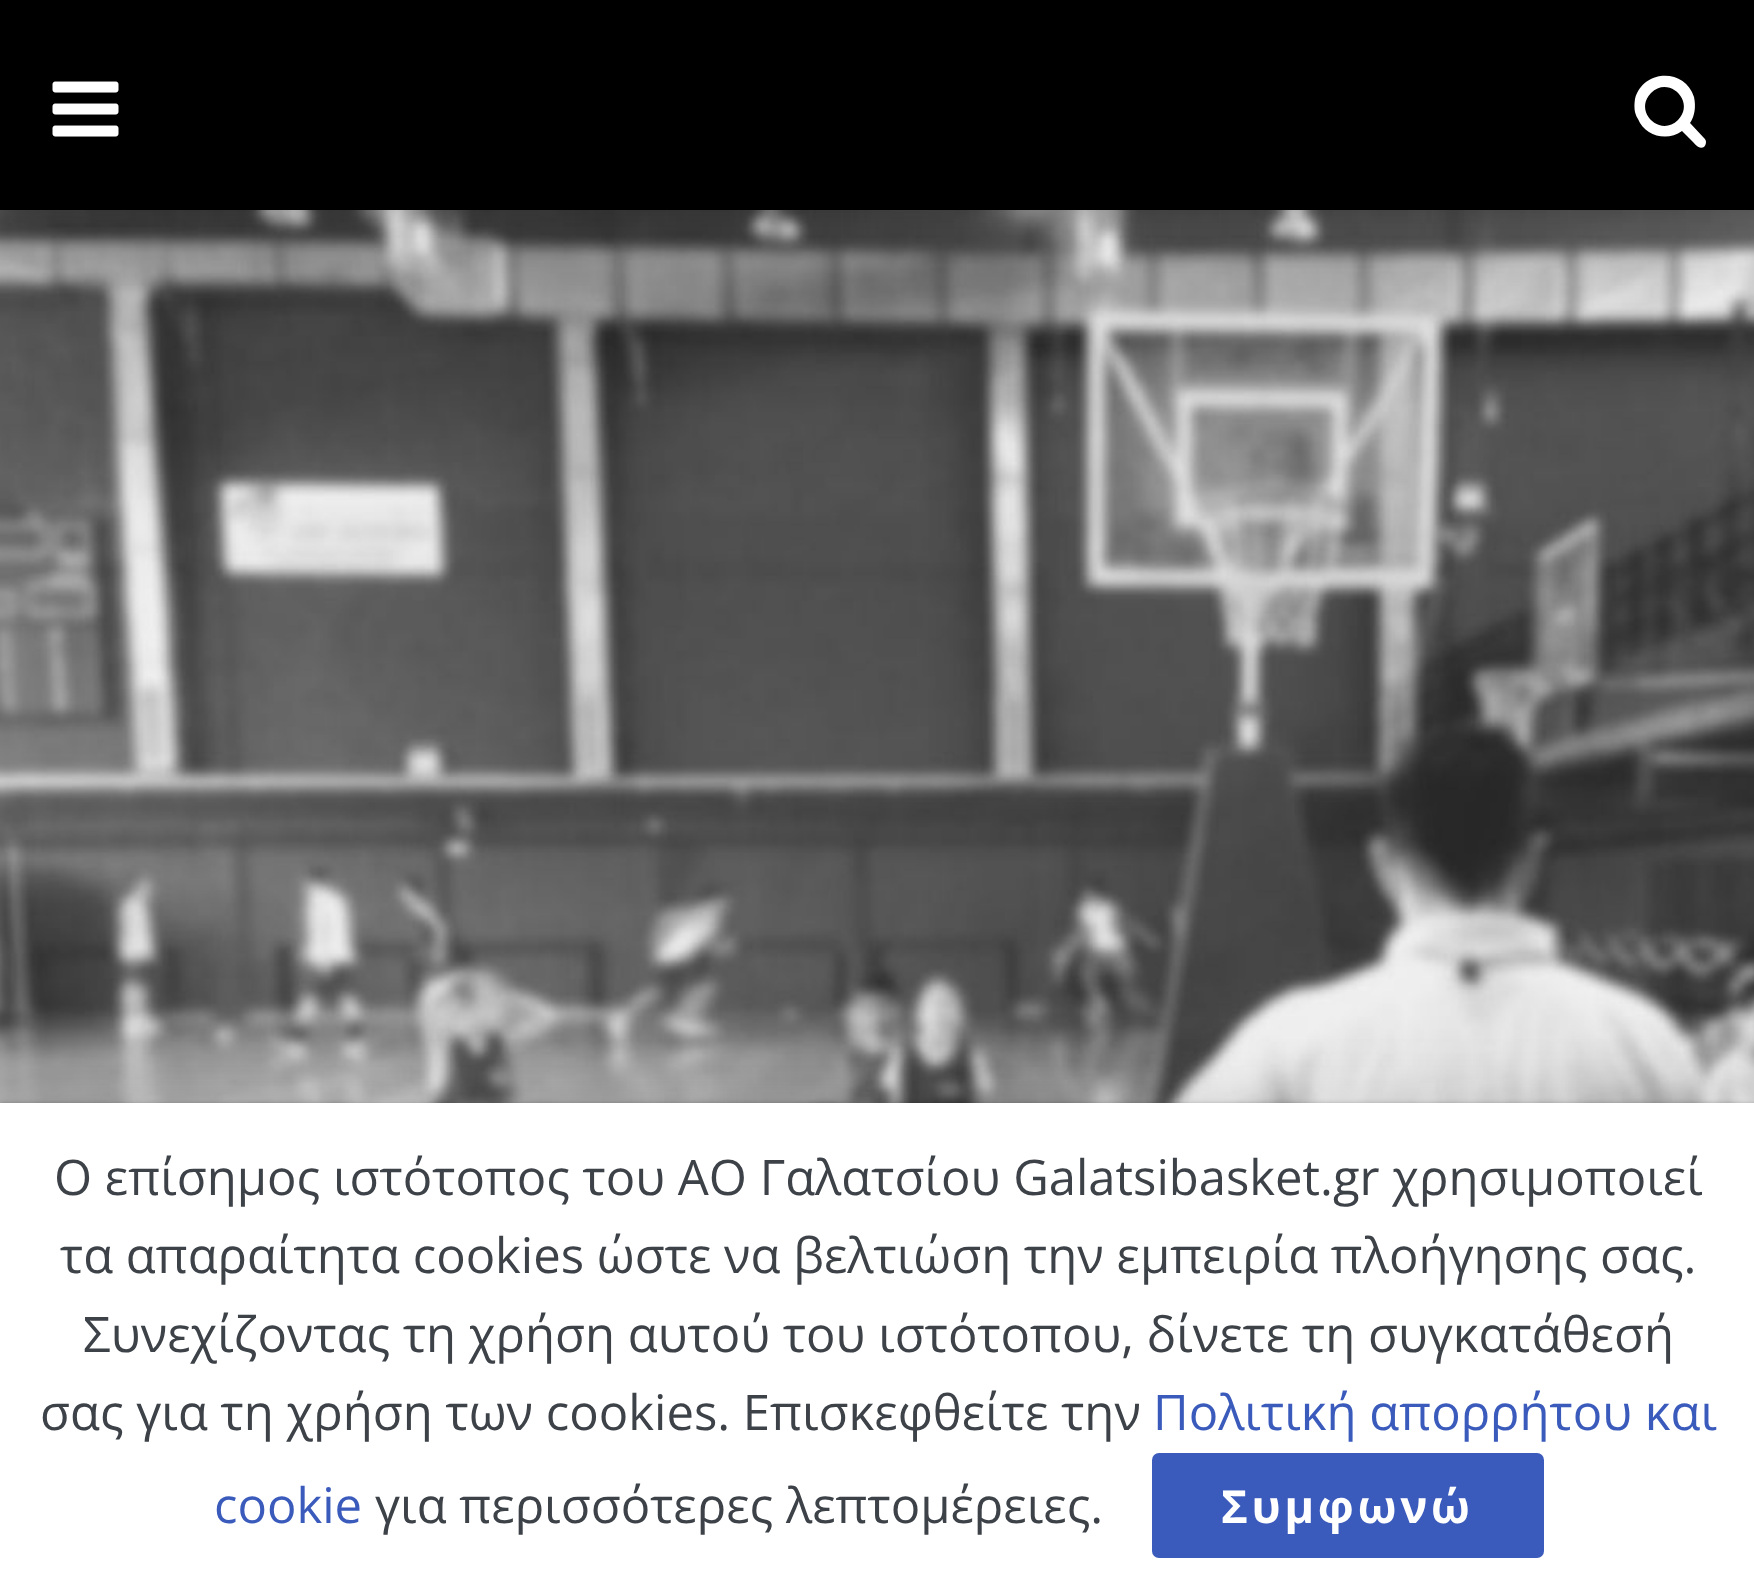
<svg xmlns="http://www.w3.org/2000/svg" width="1754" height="1590">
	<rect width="100%" height="100%" fill="#FFFFFF" />
	<image x="0" y="210" width="1754" height="893" href="assets/img2.png" />
	<rect x="0" y="7" width="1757" height="210" fill="#000000" fill-opacity="0.1" filter="blur(10.5px)" />
	<rect x="0" y="0" width="1754" height="210" fill="#000000" />
	<image x="52" y="81" width="67" height="56" href="assets/img1.png" />
	<path d="M1678 120C1696 102 1669 75 1651 93C1633 111 1660 138 1678 120ZM1706 142C1706 144 1705 146 1704 147C1699 150 1695 144 1692 141L1682 131C1667 142 1645 136 1638 119C1634 113 1634 106 1635 99C1643 69 1685 68 1694 97C1696 106 1695 116 1690 123L1704 138C1705 139 1706 140 1706 142Z" fill="#FFFFFF" />
	<rect x="0" y="1110" width="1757" height="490" fill="#000000" fill-opacity="0.15" filter="blur(35px)" />
	<rect x="0" y="1103" width="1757" height="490" fill="#000000" fill-opacity="0.2" filter="blur(2px)" />
	<rect x="0" y="1103" width="1754" height="487" fill="#FFFFFF" />
	<g font-family="Open Sans" font-size="49" fill="#3D4248">
		<text x="54" y="1195">Ο επίσημος ιστότοπος του ΑΟ Γαλατσίου Galatsibasket.gr χρησιμοποιεί</text>
		<text x="60" y="1273">τα απαραίτητα cookies ώστε να βελτιώση την εμπειρία πλοήγησης σας.</text>
		<text x="83" y="1352">Συνεχίζοντας τη χρήση αυτού του ιστότοπου, δίνετε τη συγκατάθεσή</text>
		<text x="40" y="1430">σας για τη χρήση των cookies. Επισκεφθείτε την</text>
	</g>
	<g font-family="Open Sans" font-size="49" fill="#3A5BBC">
		<text x="1153" y="1430">Πολιτική απορρήτου και</text>
		<text x="214" y="1523">cookie</text>
	</g>
	<text x="375" y="1523" font-family="Open Sans" font-size="49" fill="#3D4248">για περισσότερες λεπτομέρειες.</text>
	<rect x="1152" y="1453" width="392" height="105" rx="7" fill="#3A5BBC" />
	<text x="1221" y="1523" font-family="Open Sans" font-size="45.5" font-weight="700" letter-spacing="3.5" fill="#FFFFFF">Συμφωνώ</text>
</svg>
